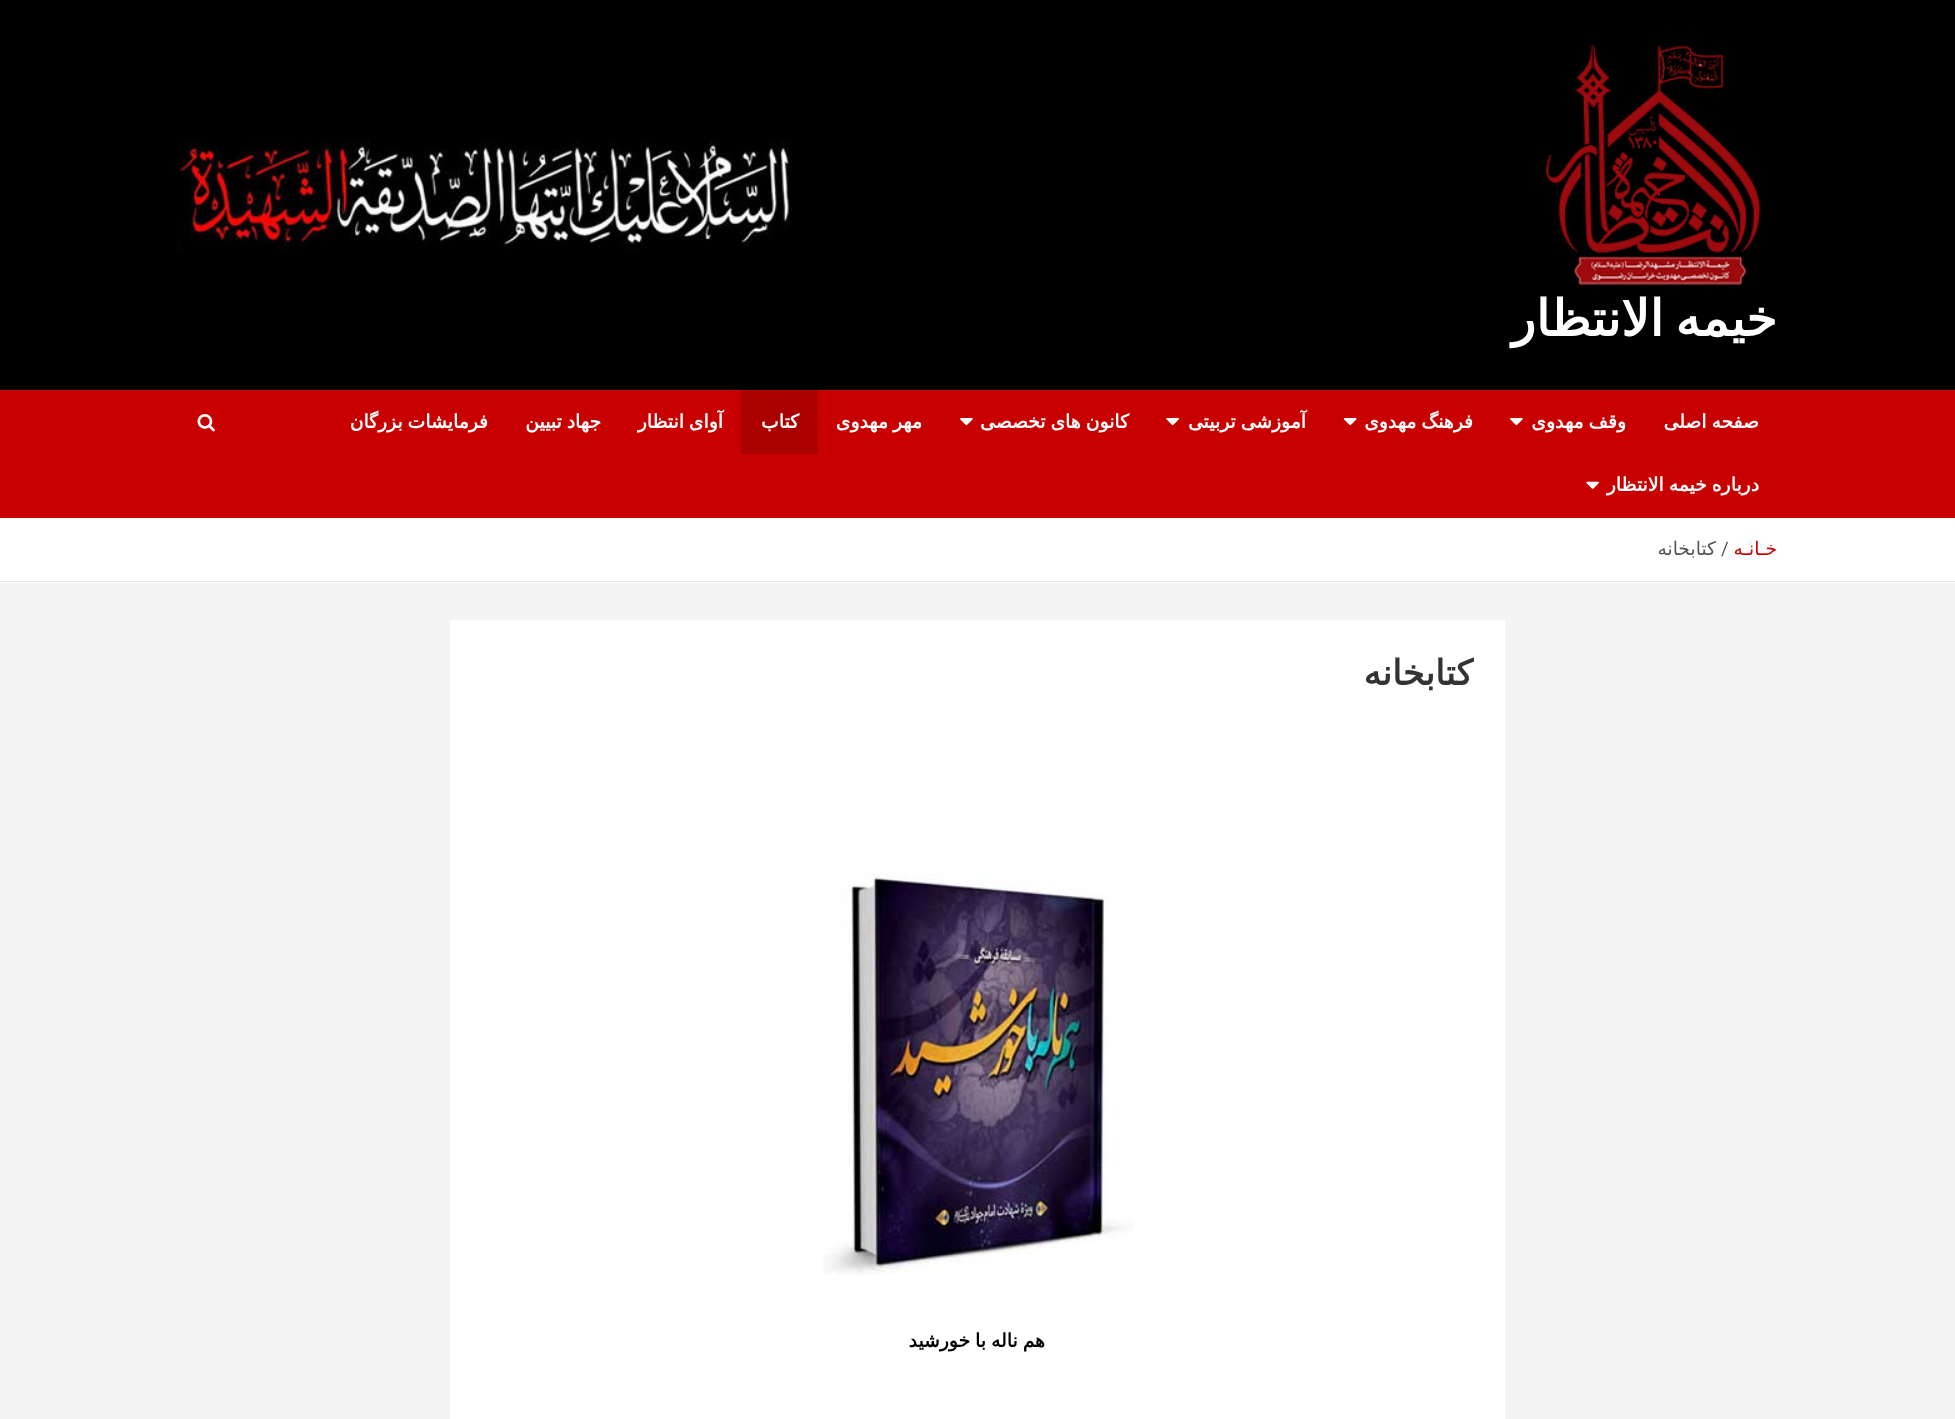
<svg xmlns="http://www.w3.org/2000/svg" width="1955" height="1419">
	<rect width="100%" height="100%" fill="#F4F4F4" />
	<rect x="0" y="0" width="1955" height="390" fill="#000000" />
	<image x="177" y="139" width="624" height="112" href="assets/img1.png" />
	<image x="1546" y="45" width="215" height="241" href="assets/img2.png" />
	<text x="1777" y="336" word-spacing="-4" font-family="DejaVu Sans" font-size="50" font-weight="700" direction="rtl" fill="#FFFFFF">خیمه الانتظار</text>
	<rect x="0" y="390" width="1955" height="128" fill="#C80000" />
	<g font-family="DejaVu Sans" font-size="18.75" font-weight="700" direction="rtl" fill="#FFFFFF">
		<text x="1759" y="428" word-spacing="-1">صفحه اصلی</text>
		<text x="1626" y="428" word-spacing="-1">وقف مهدوی</text>
	</g>
	<image x="1510" y="418" width="13" height="8" href="assets/img3.png" />
	<text x="1473" y="428" word-spacing="-1" font-family="DejaVu Sans" font-size="18.75" font-weight="700" direction="rtl" fill="#FFFFFF">فرهنگ مهدوی</text>
	<image x="1343" y="418" width="14" height="8" href="assets/img4.png" />
	<text x="1306" y="428" word-spacing="-1" font-family="DejaVu Sans" font-size="18.75" font-weight="700" direction="rtl" fill="#FFFFFF">آموزشی تربیتی</text>
	<image x="1166" y="418" width="14" height="8" href="assets/img5.png" />
	<text x="1129" y="428" word-spacing="-1" font-family="DejaVu Sans" font-size="18.75" font-weight="700" direction="rtl" fill="#FFFFFF">کانون های تخصصی</text>
	<image x="960" y="418" width="13" height="8" href="assets/img3.png" />
	<text x="922" y="428" word-spacing="-1" font-family="DejaVu Sans" font-size="18.75" font-weight="700" direction="rtl" fill="#FFFFFF">مهر مهدوی</text>
	<rect x="741" y="390" width="77" height="64" fill="#AA0000" />
	<g font-family="DejaVu Sans" font-size="18.75" font-weight="700" direction="rtl" fill="#FFFFFF">
		<text x="799" y="428">کتاب</text>
		<text x="723" y="428" word-spacing="-1">آوای انتظار</text>
		<text x="601" y="428" word-spacing="-1">جهاد تبیین</text>
		<text x="488" y="428" word-spacing="-1">فرمایشات بزرگان</text>
		<text x="1759" y="491" word-spacing="-1">درباره خیمه الانتظار</text>
	</g>
	<image x="1586" y="481" width="14" height="8" href="assets/img6.png" />
	<image x="197" y="414" width="18" height="18" href="assets/img7.png" />
	<rect x="0" y="518" width="1955" height="65" fill="#FFFFFF" />
	<rect x="0" y="581" width="1955" height="1" fill="#E6E6E6" />
	<text x="1777" y="555" font-family="DejaVu Sans" font-size="18.75" direction="rtl" fill="#C80000">خـانـه</text>
	<text x="1721" y="555" font-family="Roboto" font-size="18.75" fill="#555555">/</text>
	<text x="1716" y="555" font-family="DejaVu Sans" font-size="18.75" direction="rtl" fill="#555555">کتابخانه</text>
	<rect x="450" y="620" width="1055" height="799" fill="#FFFFFF" />
	<text x="1473" y="685" font-family="DejaVu Sans" font-size="35" font-weight="700" direction="rtl" fill="#333333">کتابخانه</text>
	<image x="823" y="874" width="311" height="401" href="assets/img8.png" />
	<text x="1045" y="1347" word-spacing="-1" font-family="DejaVu Sans" font-size="18.75" font-weight="700" direction="rtl" fill="#000000">هم ناله با خورشید</text>
</svg>
